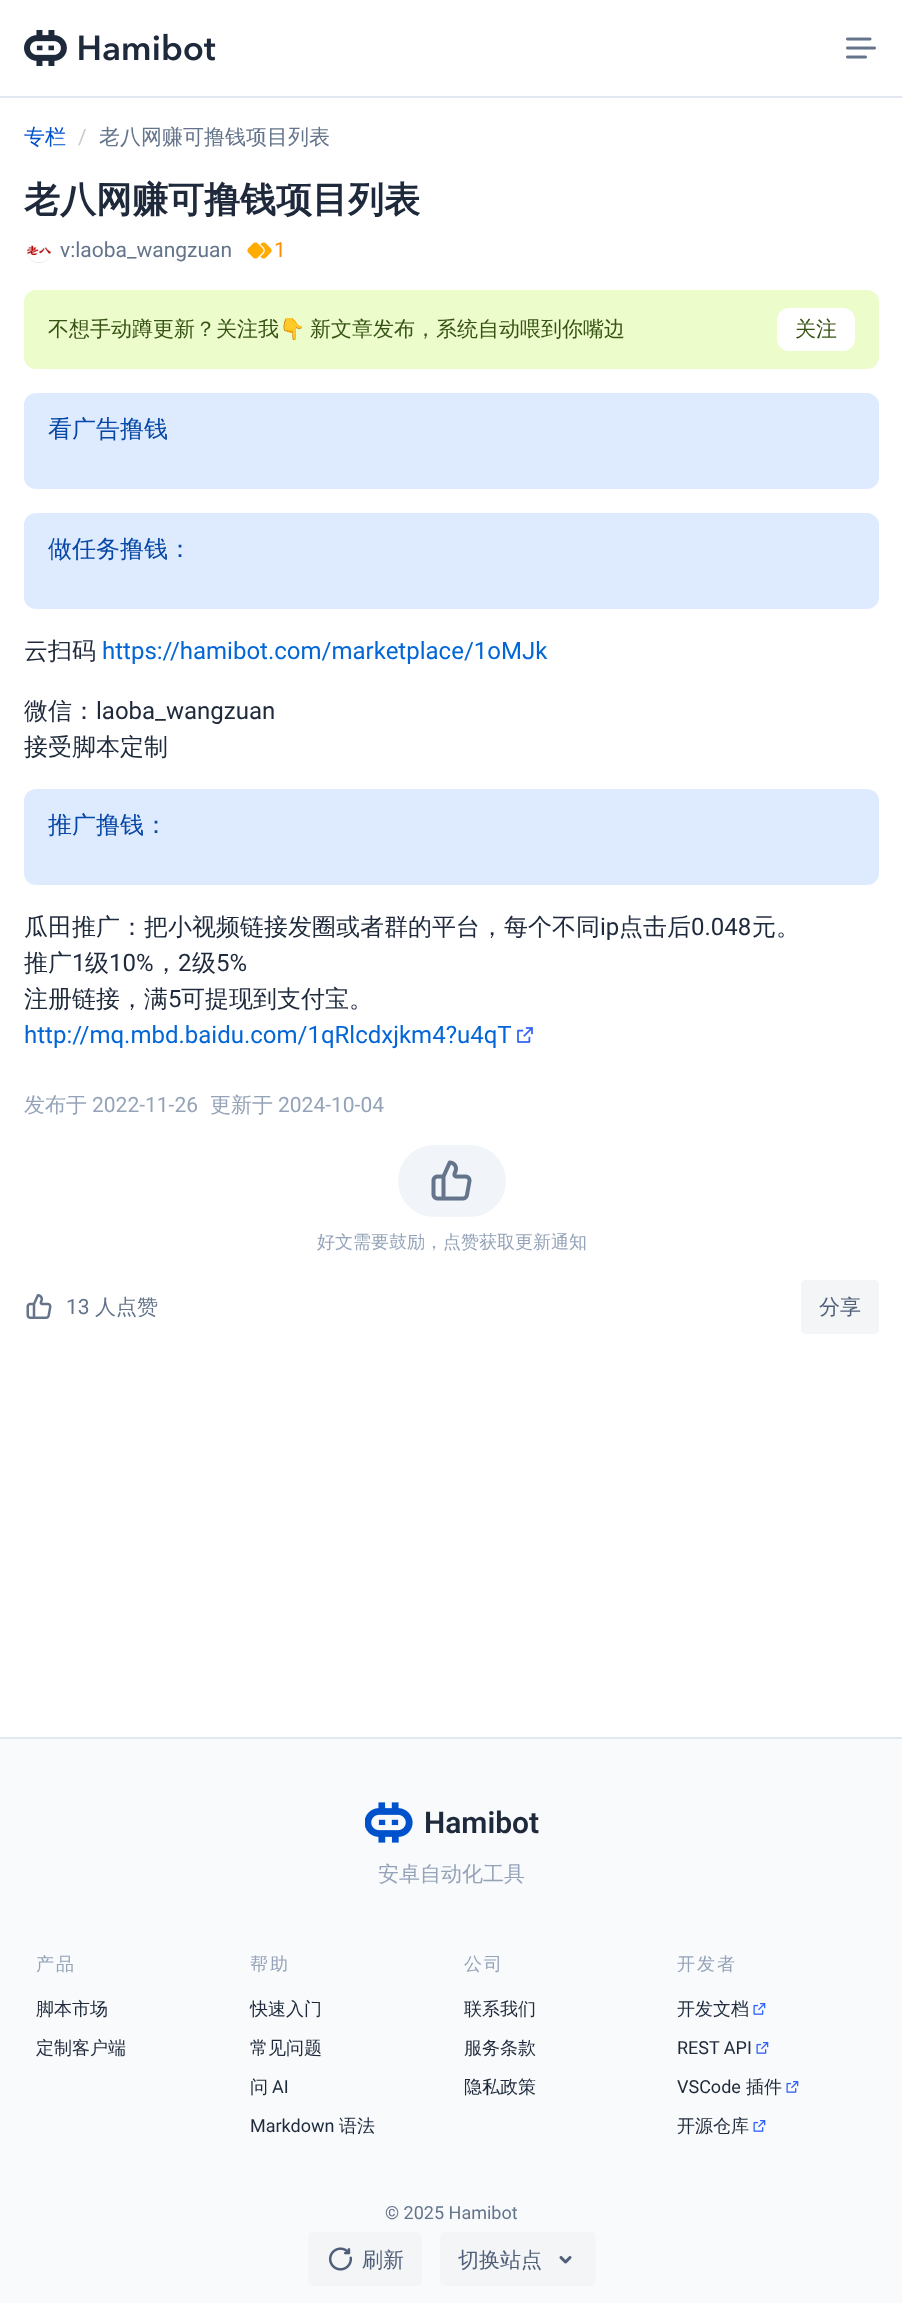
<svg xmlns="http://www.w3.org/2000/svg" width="902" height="2303">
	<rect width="100%" height="100%" fill="#FFFFFF" />
	<rect x="0" y="96" width="902" height="2" fill="#E2E8F0" />
	<image x="24" y="30" width="192" height="36" href="assets/img1.png" />
	<image x="846" y="37" width="30" height="22" href="assets/img2.png" />
	<text x="24" y="144" font-family="WenQuanYi Zen Hei" font-size="21" font-weight="500" fill="#0052CC">专栏</text>
	<text x="78" y="144" font-family="Roboto" font-size="21" fill="#C7CACE">/</text>
	<text x="99" y="144" font-family="WenQuanYi Zen Hei" font-size="21" font-weight="500" fill="#64748B">老八网赚可撸钱项目列表</text>
	<text x="24" y="212" font-family="WenQuanYi Zen Hei" font-size="36" font-weight="700" fill="#1E293B">老八网赚可撸钱项目列表</text>
	<circle cx="39" cy="251" r="12" fill="#DFE2E6" />
	<image x="27" y="239" width="24" height="24" href="assets/img3.png" />
	<text x="60" y="257" font-family="Roboto" font-size="21" fill="#64748B">v:laoba_wangzuan</text>
	<image x="247" y="242" width="25" height="17" href="assets/img4.png" />
	<text x="274" y="257" font-family="Roboto" font-size="21" fill="#FF8B00">1</text>
	<rect x="24" y="290" width="855" height="79" rx="12" fill="#ECFCCB" />
	<text x="48" y="336" font-family="WenQuanYi Zen Hei" font-size="21" font-weight="500" fill="#365314">不想手动蹲更新？关注我</text>
	<text x="279" y="336" font-family="Noto Color Emoji" font-size="21" fill="#365314">👇</text>
	<text x="310" y="336" font-family="WenQuanYi Zen Hei" font-size="21" font-weight="500" fill="#365314">新文章发布，系统自动喂到你嘴边</text>
	<rect x="777" y="308" width="78" height="43" rx="12" fill="#FFFFFF" />
	<text x="795" y="336" font-family="WenQuanYi Zen Hei" font-size="21" font-weight="500" fill="#365314">关注</text>
	<rect x="24" y="393" width="855" height="96" rx="12" fill="#DEEBFF" />
	<text x="48" y="437" font-family="WenQuanYi Zen Hei" font-size="24" font-weight="500" fill="#0747A6">看广告撸钱</text>
	<rect x="24" y="513" width="855" height="96" rx="12" fill="#DEEBFF" />
	<text x="48" y="557" font-family="WenQuanYi Zen Hei" font-size="24" font-weight="500" fill="#0747A6">做任务撸钱：</text>
	<text x="24" y="659" font-family="WenQuanYi Zen Hei" font-size="24" font-weight="500" fill="#1E293B">云扫码</text>
	<text x="102" y="659" font-family="Roboto" font-size="24" fill="#0366D6">https://hamibot.com/marketplace/1oMJk</text>
	<text x="24" y="719" font-family="WenQuanYi Zen Hei" font-size="24" font-weight="500" fill="#1E293B">微信：</text>
	<text x="96" y="719" font-family="Roboto" font-size="24" fill="#1E293B">laoba_wangzuan</text>
	<text x="24" y="755" font-family="WenQuanYi Zen Hei" font-size="24" font-weight="500" fill="#1E293B">接受脚本定制</text>
	<rect x="24" y="789" width="855" height="96" rx="12" fill="#DEEBFF" />
	<text x="48" y="833" font-family="WenQuanYi Zen Hei" font-size="24" font-weight="500" fill="#0747A6">推广撸钱：</text>
	<text x="24" y="935" font-family="WenQuanYi Zen Hei" font-size="24" font-weight="500" fill="#1E293B">瓜田推广：把小视频链接发圈或者群的平台，每个不同</text>
	<text x="600" y="935" font-family="Roboto" font-size="24" fill="#1E293B">ip</text>
	<text x="619" y="935" font-family="WenQuanYi Zen Hei" font-size="24" font-weight="500" fill="#1E293B">点击后</text>
	<text x="691" y="935" font-family="Roboto" font-size="24" fill="#1E293B">0.048</text>
	<g font-family="WenQuanYi Zen Hei" font-size="24" font-weight="500" fill="#1E293B">
		<text x="752" y="935">元。</text>
		<text x="24" y="971">推广</text>
	</g>
	<text x="72" y="971" font-family="Roboto" font-size="24" fill="#1E293B">1</text>
	<text x="85" y="971" font-family="WenQuanYi Zen Hei" font-size="24" font-weight="500" fill="#1E293B">级</text>
	<text x="109" y="971" font-family="Roboto" font-size="24" fill="#1E293B">10%</text>
	<text x="154" y="971" font-family="WenQuanYi Zen Hei" font-size="24" font-weight="500" fill="#1E293B">，</text>
	<text x="178" y="971" font-family="Roboto" font-size="24" fill="#1E293B">2</text>
	<text x="192" y="971" font-family="WenQuanYi Zen Hei" font-size="24" font-weight="500" fill="#1E293B">级</text>
	<text x="216" y="971" font-family="Roboto" font-size="24" fill="#1E293B">5%</text>
	<text x="24" y="1007" font-family="WenQuanYi Zen Hei" font-size="24" font-weight="500" fill="#1E293B">注册链接，满</text>
	<text x="168" y="1007" font-family="Roboto" font-size="24" fill="#1E293B">5</text>
	<text x="181" y="1007" font-family="WenQuanYi Zen Hei" font-size="24" font-weight="500" fill="#1E293B">可提现到支付宝。</text>
	<text x="24" y="1043" font-family="Roboto" font-size="24" fill="#0366D6">http://mq.mbd.baidu.com/1qRlcdxjkm4?u4qT</text>
	<image x="517" y="1027" width="16" height="16" href="assets/img5.png" />
	<text x="24" y="1112" font-family="WenQuanYi Zen Hei" font-size="21" font-weight="500" fill="#94A3B8">发布于</text>
	<text x="92" y="1112" font-family="Roboto" font-size="21" fill="#94A3B8">2022-11-26</text>
	<text x="210" y="1112" font-family="WenQuanYi Zen Hei" font-size="21" font-weight="500" fill="#94A3B8">更新于</text>
	<text x="278" y="1112" font-family="Roboto" font-size="21" fill="#94A3B8">2024-10-04</text>
	<rect x="398" y="1145" width="108" height="72" rx="36" fill="#F1F5F9" />
	<image x="431" y="1160" width="41" height="41" href="assets/img6.png" />
	<text x="317" y="1248" font-family="WenQuanYi Zen Hei" font-size="18" font-weight="500" fill="#94A3B8">好文需要鼓励，点赞获取更新通知</text>
	<image x="26" y="1294" width="26" height="25" href="assets/img7.png" />
	<text x="66" y="1314" font-family="Roboto" font-size="21" fill="#64748B">13</text>
	<text x="95" y="1314" font-family="WenQuanYi Zen Hei" font-size="21" font-weight="500" fill="#64748B">人点赞</text>
	<rect x="801" y="1280" width="78" height="54" rx="5" fill="#F4F5F7" />
	<text x="819" y="1314" font-family="WenQuanYi Zen Hei" font-size="21" font-weight="500" fill="#505F79">分享</text>
	<rect x="0" y="1739" width="902" height="564" fill="#F8FAFC" />
	<rect x="0" y="1737" width="902" height="2" fill="#E2E8F0" />
	<image x="365" y="1802" width="48" height="41" href="assets/img8.png" />
	<text x="424" y="1833" font-family="Roboto" font-size="30" font-weight="600" fill="#1E293B">Hamibot</text>
	<text x="378" y="1881" font-family="WenQuanYi Zen Hei" font-size="21" font-weight="500" fill="#94A3B8">安卓自动化工具</text>
	<text x="36" y="1970" font-family="WenQuanYi Zen Hei" font-size="18" font-weight="500" letter-spacing="2" fill="#94A3B8">产品</text>
	<g font-family="WenQuanYi Zen Hei" font-size="18" font-weight="500" fill="#1E293B">
		<text x="36" y="2015">脚本市场</text>
		<text x="36" y="2054">定制客户端</text>
	</g>
	<text x="250" y="1970" font-family="WenQuanYi Zen Hei" font-size="18" font-weight="500" letter-spacing="2" fill="#94A3B8">帮助</text>
	<g font-family="WenQuanYi Zen Hei" font-size="18" font-weight="500" fill="#1E293B">
		<text x="250" y="2015">快速入门</text>
		<text x="250" y="2054">常见问题</text>
		<text x="250" y="2093">问</text>
	</g>
	<g font-family="Roboto" font-size="18" fill="#1E293B">
		<text x="272" y="2093">AI</text>
		<text x="250" y="2132">Markdown</text>
	</g>
	<text x="339" y="2132" font-family="WenQuanYi Zen Hei" font-size="18" font-weight="500" fill="#1E293B">语法</text>
	<text x="464" y="1970" font-family="WenQuanYi Zen Hei" font-size="18" font-weight="500" letter-spacing="2" fill="#94A3B8">公司</text>
	<g font-family="WenQuanYi Zen Hei" font-size="18" font-weight="500" fill="#1E293B">
		<text x="464" y="2015">联系我们</text>
		<text x="464" y="2054">服务条款</text>
		<text x="464" y="2093">隐私政策</text>
	</g>
	<text x="677" y="1970" font-family="WenQuanYi Zen Hei" font-size="18" font-weight="500" letter-spacing="2" fill="#94A3B8">开发者</text>
	<text x="677" y="2015" font-family="WenQuanYi Zen Hei" font-size="18" font-weight="500" fill="#1E293B">开发文档</text>
	<image x="753" y="2003" width="13" height="12" href="assets/img9.png" />
	<text x="677" y="2054" font-family="Roboto" font-size="18" fill="#1E293B">REST API</text>
	<image x="756" y="2042" width="13" height="12" href="assets/img9.png" />
	<text x="677" y="2093" font-family="Roboto" font-size="18" fill="#1E293B">VSCode</text>
	<text x="746" y="2093" font-family="WenQuanYi Zen Hei" font-size="18" font-weight="500" fill="#1E293B">插件</text>
	<image x="786" y="2081" width="13" height="12" href="assets/img9.png" />
	<text x="677" y="2132" font-family="WenQuanYi Zen Hei" font-size="18" font-weight="500" fill="#1E293B">开源仓库</text>
	<image x="753" y="2120" width="13" height="12" href="assets/img9.png" />
	<text x="385" y="2219" font-family="Roboto" font-size="18" fill="#64748B">© 2025 Hamibot</text>
	<rect x="308" y="2232" width="114" height="54" rx="5" fill="#F4F5F7" />
	<image x="328" y="2247" width="25" height="24" href="assets/img10.png" />
	<text x="362" y="2267" font-family="WenQuanYi Zen Hei" font-size="21" font-weight="500" fill="#505F79">刷新</text>
	<rect x="440" y="2232" width="156" height="54" rx="5" fill="#F4F5F7" />
	<text x="458" y="2267" font-family="WenQuanYi Zen Hei" font-size="21" font-weight="500" fill="#505F79">切换站点</text>
	<image x="559" y="2256" width="13" height="8" href="assets/img11.png" />
</svg>
